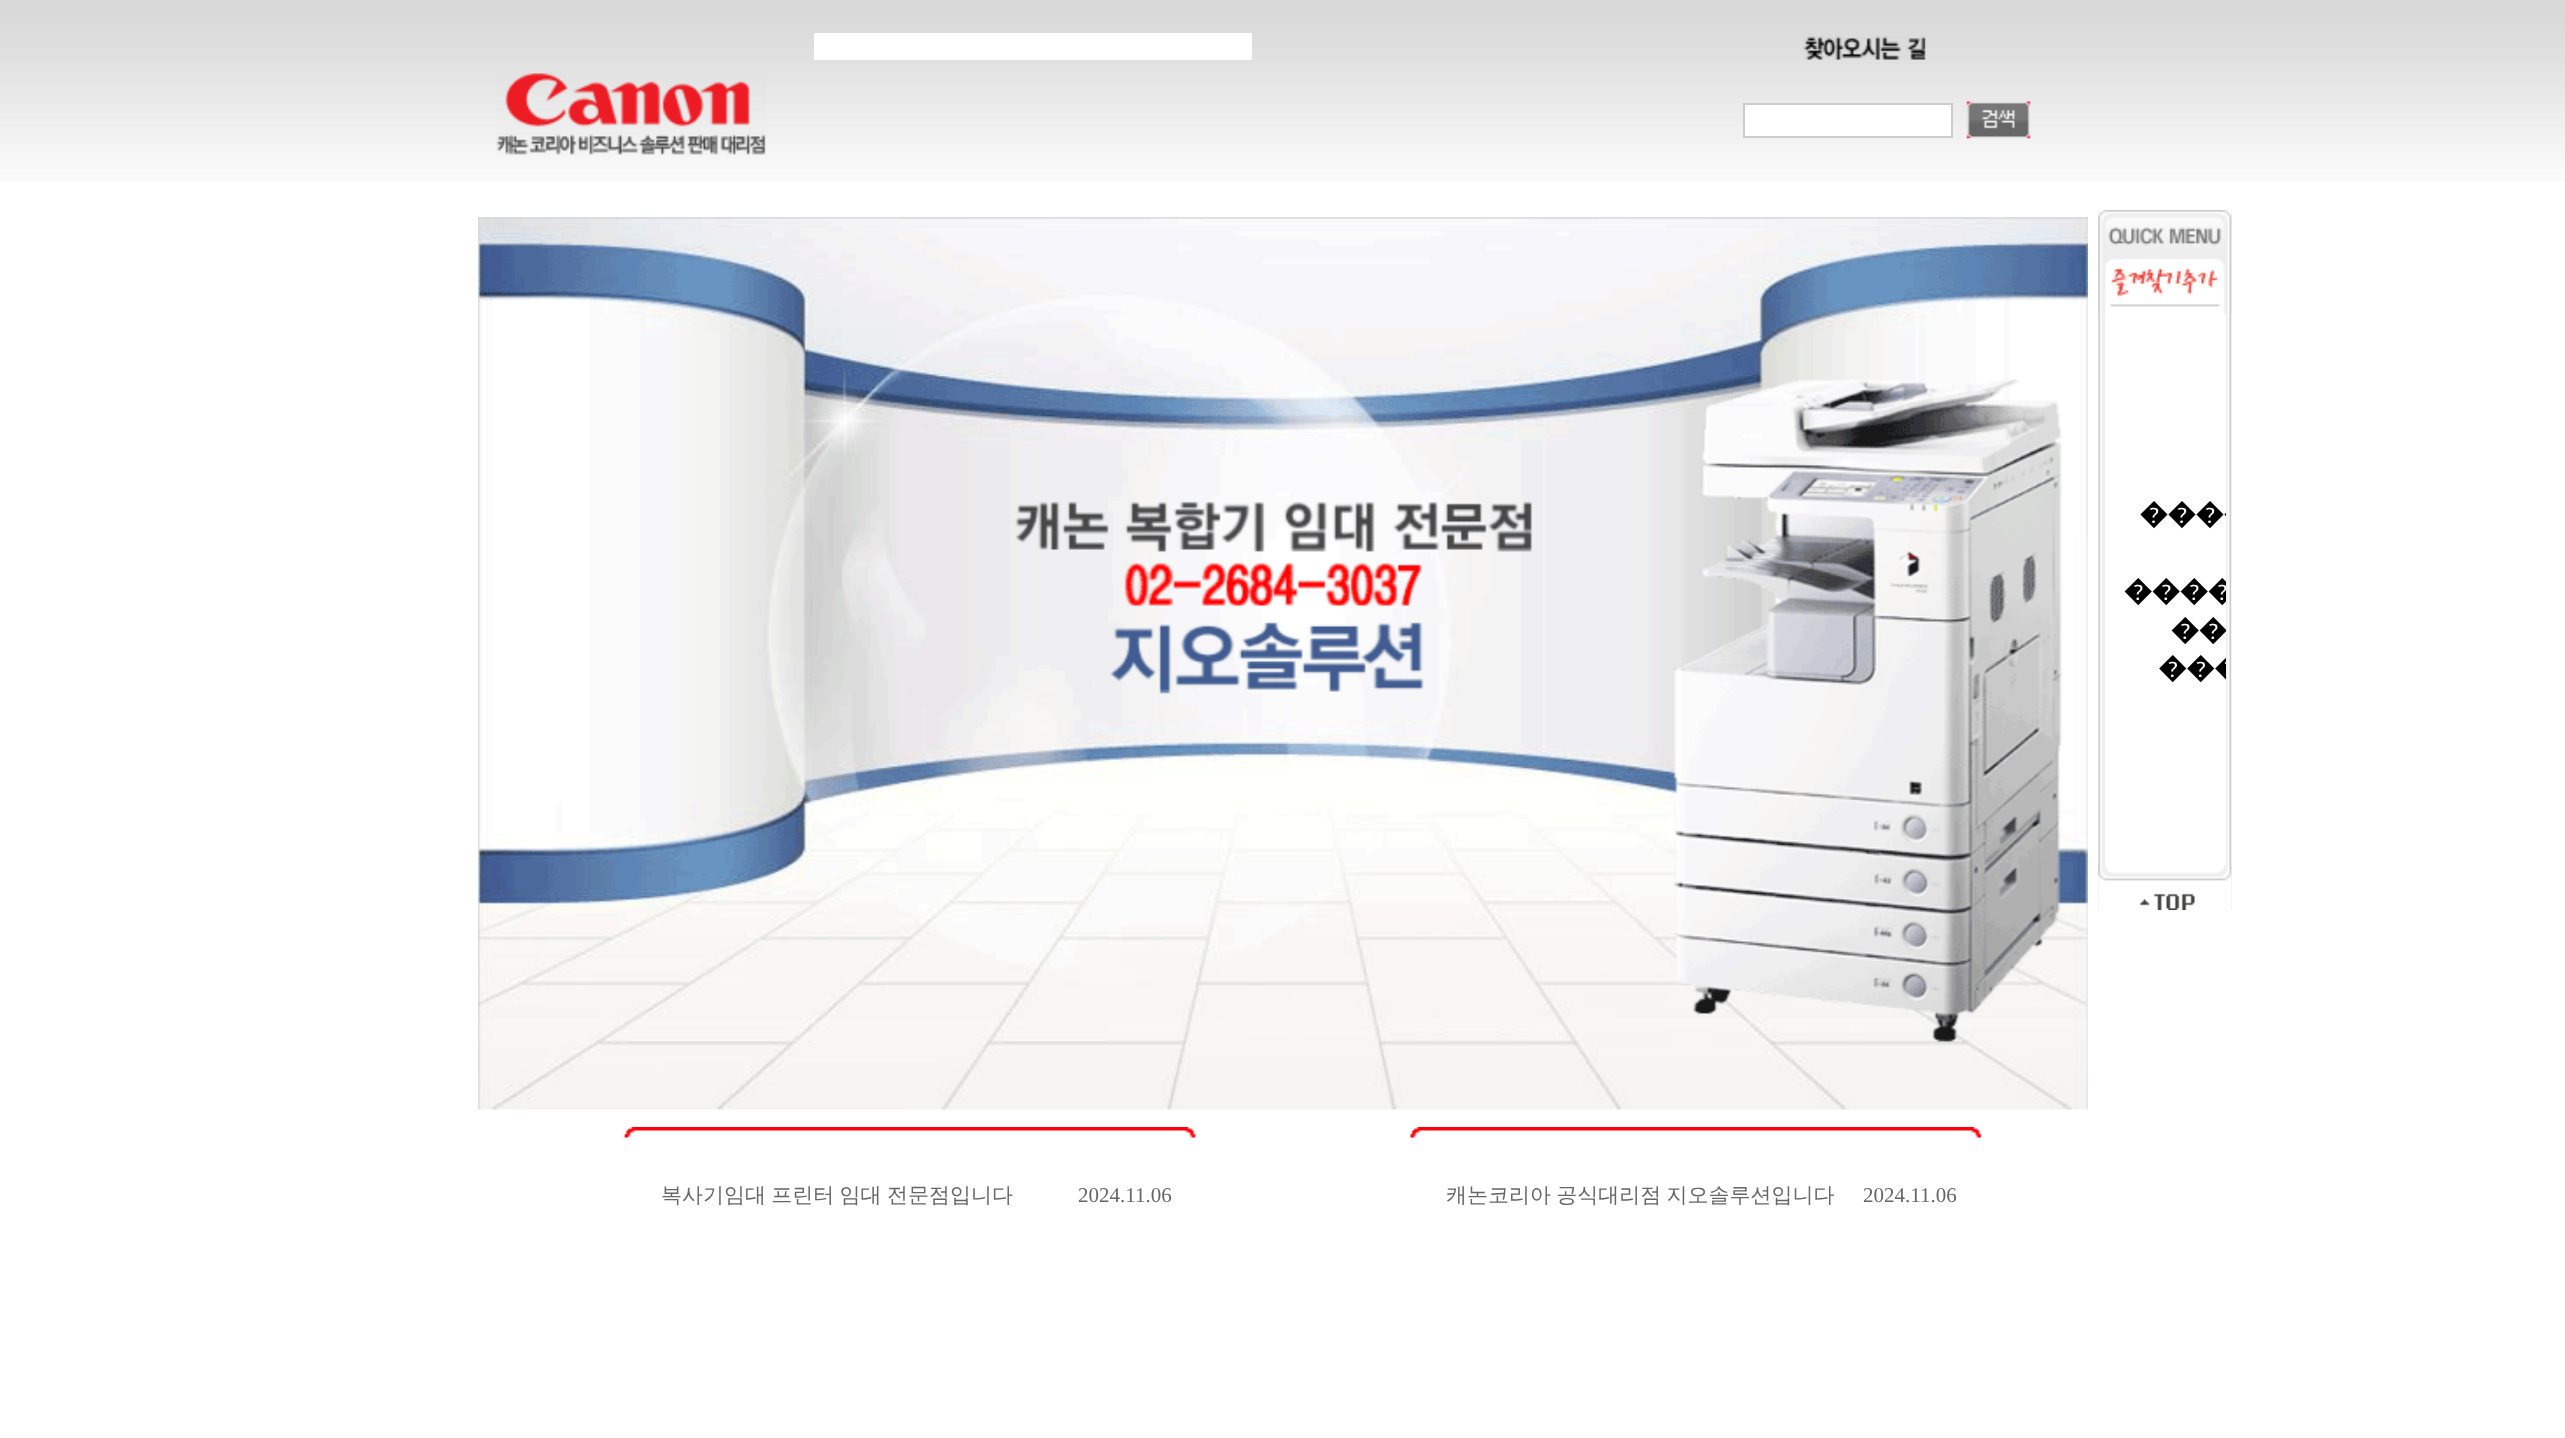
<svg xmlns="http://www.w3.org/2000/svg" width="2565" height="1438">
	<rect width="100%" height="100%" fill="#FFFFFF" />
	<image x="0" y="0" width="2565" height="181" href="assets/img1.png" />
	<image x="496" y="73" width="270" height="82" href="assets/img2.png" />
	<rect x="814" y="33" width="438" height="27" fill="#FFFFFF" />
	<image x="1803" y="36" width="123" height="24" href="assets/img3.png" />
	<rect x="1744" y="104" width="208" height="33" fill="#FFFFFF" stroke="#CCCCCC" stroke-width="2" />
	<image x="1966" y="101" width="65" height="38" href="assets/img4.png" />
	<image x="2098" y="210" width="134" height="700" href="assets/img5.png" />
	<image x="2098" y="210" width="134" height="105" href="assets/img6.png" />
	<image x="2098" y="864" width="134" height="46" href="assets/img8.png" />
	<image x="2105" y="315" width="121" height="550" href="assets/img7.png" />
	<image x="478" y="217" width="1610" height="893" href="assets/img9.png" />
	<image x="624" y="1127" width="572" height="11" href="assets/img10.png" />
	<text x="661" y="1202" word-spacing="-1" font-family="WenQuanYi Zen Hei" font-size="21" font-weight="500" fill="#666666">복사기임대 프린터 임대 전문점입니다</text>
	<text x="1078" y="1202" font-family="Liberation Serif" font-size="21" fill="#666666">2024.11.06</text>
	<image x="1409" y="1127" width="573" height="11" href="assets/img11.png" />
	<text x="1446" y="1202" word-spacing="-1" font-family="WenQuanYi Zen Hei" font-size="21" font-weight="500" fill="#666666">캐논코리아 공식대리점 지오솔루션입니다</text>
	<text x="1863" y="1202" font-family="Liberation Serif" font-size="21" fill="#666666">2024.11.06</text>
</svg>
